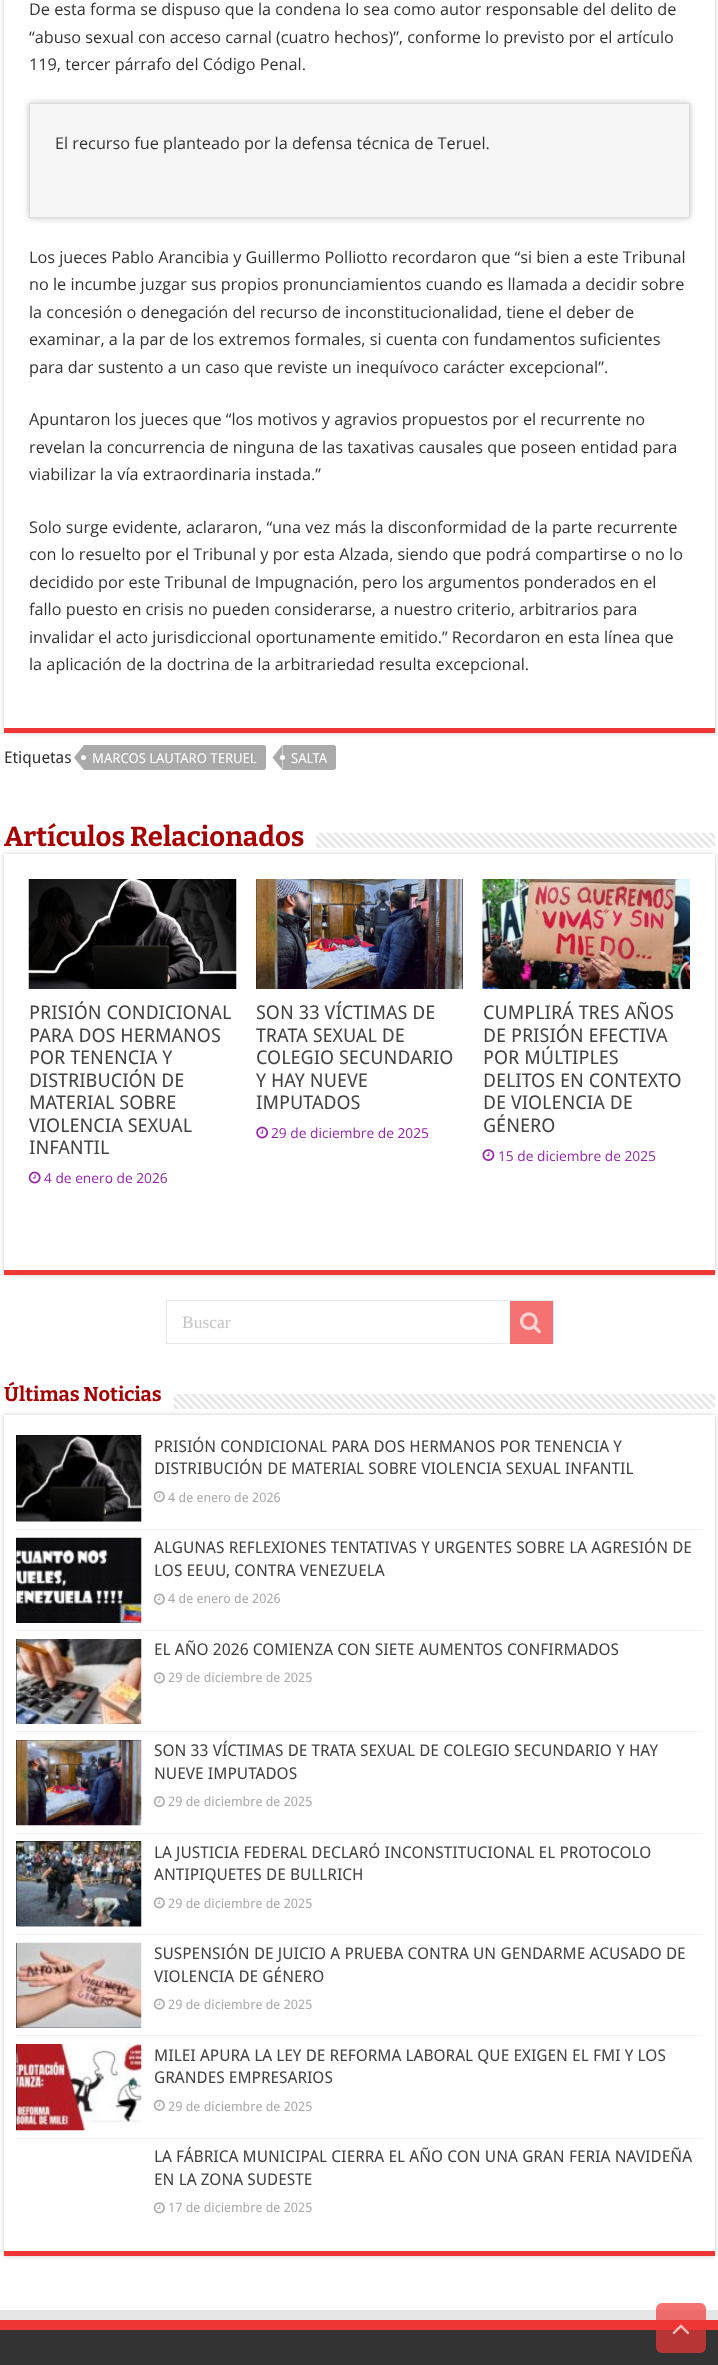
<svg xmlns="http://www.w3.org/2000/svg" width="718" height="2365">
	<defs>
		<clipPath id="clip1"><path d="M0 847H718V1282H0ZM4 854H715V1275H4Z" clip-rule="evenodd" /></clipPath>
		<clipPath id="clip2"><path d="M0 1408H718V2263H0ZM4 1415H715V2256H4Z" clip-rule="evenodd" /></clipPath>
	</defs>
	<rect width="100%" height="100%" fill="#FFFFFF" />
	<rect x="4" y="-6" width="711" height="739" fill="#CACACA" filter="blur(2px)" />
	<rect x="4" y="0" width="711" height="728" fill="#FFFFFF" />
	<rect x="4" y="728" width="711" height="5" fill="#EF3636" />
	<g font-family="Open Sans" font-size="16.25" fill="#333333">
		<text x="29" y="15">De esta forma se dispuso que la condena lo sea como autor responsable del delito de</text>
		<text x="29" y="43">“abuso sexual con acceso carnal (cuatro hechos)”, conforme lo previsto por el artículo</text>
		<text x="29" y="70">119, tercer párrafo del Código Penal.</text>
	</g>
	<rect x="29" y="103" width="661" height="115" fill="#999999" fill-opacity="0.6" filter="blur(3px)" />
	<rect x="29.5" y="103.5" width="660" height="114" fill="#F6F6F6" stroke="#DDDDDD" />
	<g font-family="Open Sans" font-size="16.25" fill="#333333">
		<text x="55" y="149">El recurso fue planteado por la defensa técnica de Teruel.</text>
		<text x="29" y="263">Los jueces Pablo Arancibia y Guillermo Polliotto recordaron que “si bien a este Tribunal</text>
		<text x="29" y="290">no le incumbe juzgar sus propios pronunciamientos cuando es llamada a decidir sobre</text>
		<text x="29" y="318">la concesión o denegación del recurso de inconstitucionalidad, tiene el deber de</text>
		<text x="29" y="345">examinar, a la par de los extremos formales, si cuenta con fundamentos suficientes</text>
		<text x="29" y="373">para dar sustento a un caso que reviste un inequívoco carácter excepcional”.</text>
		<text x="29" y="425">Apuntaron los jueces que “los motivos y agravios propuestos por el recurrente no</text>
		<text x="29" y="453">revelan la concurrencia de ninguna de las taxativas causales que poseen entidad para</text>
		<text x="29" y="480">viabilizar la vía extraordinaria instada.”</text>
		<text x="29" y="533">Solo surge evidente, aclararon, “una vez más la disconformidad de la parte recurrente</text>
		<text x="29" y="560">con lo resuelto por el Tribunal y por esta Alzada, siendo que podrá compartirse o no lo</text>
		<text x="29" y="588">decidido por este Tribunal de Impugnación, pero los argumentos ponderados en el</text>
		<text x="29" y="615">fallo puesto en crisis no pueden considerarse, a nuestro criterio, arbitrarios para</text>
		<text x="29" y="643">invalidar el acto jurisdiccional oportunamente emitido.” Recordaron en esta línea que</text>
		<text x="29" y="670">la aplicación de la doctrina de la arbitrariedad resulta excepcional.</text>
	</g>
	<text x="4" y="763" font-family="Droid Sans" font-size="16.25" fill="#333333">Etiquetas</text>
	<path d="M84 745H263.5C265 745 266 746 266 747.5V767.5C266 769 265 770 263.5 770H84Z" fill="#AAAAAA" />
	<path d="M84 745V770L74 757.5Z" fill="#AAAAAA" />
	<text x="92" y="763" font-family="Droid Sans" font-size="13.75" fill="#FFFFFF">MARCOS LAUTARO TERUEL</text>
	<circle cx="83.5" cy="757.5" r="2.5" fill="#FFFFFF" />
	<path d="M283 745H333.5C335 745 336 746 336 747.5V767.5C336 769 335 770 333.5 770H283Z" fill="#AAAAAA" />
	<path d="M282.5 745V770L272.5 757.5Z" fill="#AAAAAA" />
	<text x="291" y="763" font-family="Droid Sans" font-size="13.75" fill="#FFFFFF">SALTA</text>
	<circle cx="282.5" cy="757.5" r="2.5" fill="#FFFFFF" />
	<text x="4" y="846" font-family="Bitter" font-size="27.5" font-weight="700" fill="#A80303">Artículos Relacionados</text>
	<g clip-path="url(#clip1)">
		<rect x="4" y="854" width="711" height="421" fill="#CACACA" filter="blur(2px)" />
	</g>
	<image x="316" y="832" width="399" height="16" href="assets/img1.png" />
	<rect x="4" y="1270" width="711" height="5" fill="#EF3636" />
	<image x="28" y="879" width="209" height="110" href="assets/img2.png" />
	<g font-family="Droid Sans" font-size="19" fill="#444444">
		<text x="29" y="1019">PRISIÓN CONDICIONAL</text>
		<text x="29" y="1042">PARA DOS HERMANOS</text>
		<text x="29" y="1064">POR TENENCIA Y</text>
		<text x="29" y="1087">DISTRIBUCIÓN DE</text>
		<text x="29" y="1109">MATERIAL SOBRE</text>
		<text x="29" y="1132">VIOLENCIA SEXUAL</text>
		<text x="29" y="1154">INFANTIL</text>
	</g>
	<image x="28" y="1171" width="13" height="13" href="assets/img3.png" />
	<text x="44" y="1183" font-family="Open Sans" font-size="13.75" fill="#9526AB">4 de enero de 2026</text>
	<rect x="256" y="879" width="207" height="110" fill="#000000" />
	<image x="256" y="879" width="207" height="110" href="assets/img4.png" />
	<g font-family="Droid Sans" font-size="19" fill="#444444">
		<text x="256" y="1019">SON 33 VÍCTIMAS DE</text>
		<text x="256" y="1042">TRATA SEXUAL DE</text>
		<text x="256" y="1064">COLEGIO SECUNDARIO</text>
		<text x="256" y="1087">Y HAY NUEVE</text>
		<text x="256" y="1109">IMPUTADOS</text>
	</g>
	<image x="256" y="1126" width="13" height="13" href="assets/img5.png" />
	<text x="271" y="1138" font-family="Open Sans" font-size="13.75" fill="#9526AB">29 de diciembre de 2025</text>
	<image x="482" y="879" width="208" height="110" href="assets/img6.png" />
	<g font-family="Droid Sans" font-size="19" fill="#444444">
		<text x="483" y="1019">CUMPLIRÁ TRES AÑOS</text>
		<text x="483" y="1042">DE PRISIÓN EFECTIVA</text>
		<text x="483" y="1064">POR MÚLTIPLES</text>
		<text x="483" y="1087">DELITOS EN CONTEXTO</text>
		<text x="483" y="1109">DE VIOLENCIA DE</text>
		<text x="483" y="1132">GÉNERO</text>
	</g>
	<image x="482" y="1149" width="13" height="12" href="assets/img7.png" />
	<text x="498" y="1161" font-family="Open Sans" font-size="13.75" fill="#9526AB">15 de diciembre de 2025</text>
	<rect x="166.5" y="1300.5" width="387" height="43" fill="none" stroke="#E8E8E8" />
	<text x="182" y="1328" font-family="Liberation Serif" font-size="17.5" fill="#C5C5C5">Buscar</text>
	<rect x="510" y="1301" width="43" height="43" fill="#EF3636" fill-opacity="0.7" />
	<image x="520" y="1312" width="21" height="22" href="assets/img8.png" />
	<text x="4" y="1401" font-family="Bitter" font-size="20" font-weight="700" fill="#A80303">Últimas Noticias</text>
	<g clip-path="url(#clip2)">
		<rect x="4" y="1415" width="711" height="841" fill="#CACACA" filter="blur(2px)" />
	</g>
	<image x="173" y="1394" width="542" height="15" href="assets/img9.png" />
	<rect x="4" y="2251" width="711" height="5" fill="#EF3636" />
	<rect x="16" y="1529" width="687" height="1" fill="#F2F2F2" />
	<rect x="16" y="1435" width="125" height="86" fill="#000000" />
	<image x="16" y="1435" width="126" height="87" href="assets/img10.png" />
	<g font-family="Droid Sans" font-size="16.25" fill="#444444">
		<text x="154" y="1452">PRISIÓN CONDICIONAL PARA DOS HERMANOS POR TENENCIA Y</text>
		<text x="154" y="1474">DISTRIBUCIÓN DE MATERIAL SOBRE VIOLENCIA SEXUAL INFANTIL</text>
	</g>
	<image x="153" y="1491" width="12" height="12" href="assets/img11.png" />
	<text x="168" y="1502" font-family="Droid Sans" font-size="13" fill="#AAAAAA">4 de enero de 2026</text>
	<rect x="16" y="1630" width="687" height="1" fill="#F2F2F2" />
	<rect x="16" y="1538" width="125" height="85" fill="#000000" />
	<image x="16" y="1537" width="126" height="86" href="assets/img12.png" />
	<g font-family="Droid Sans" font-size="16.25" fill="#444444">
		<text x="154" y="1553">ALGUNAS REFLEXIONES TENTATIVAS Y URGENTES SOBRE LA AGRESIÓN DE</text>
		<text x="154" y="1576">LOS EEUU, CONTRA VENEZUELA</text>
	</g>
	<image x="153" y="1593" width="12" height="12" href="assets/img13.png" />
	<text x="168" y="1603" font-family="Droid Sans" font-size="13" fill="#AAAAAA">4 de enero de 2026</text>
	<rect x="16" y="1731" width="687" height="1" fill="#F2F2F2" />
	<rect x="16" y="1639" width="1" height="85" fill="#000000" />
	<image x="16" y="1639" width="126" height="85" href="assets/img14.png" />
	<text x="154" y="1655" font-family="Droid Sans" font-size="16.25" fill="#444444">EL AÑO 2026 COMIENZA CON SIETE AUMENTOS CONFIRMADOS</text>
	<image x="153" y="1672" width="12" height="12" href="assets/img15.png" />
	<text x="168" y="1682" font-family="Droid Sans" font-size="13" fill="#AAAAAA">29 de diciembre de 2025</text>
	<rect x="16" y="1833" width="687" height="1" fill="#F2F2F2" />
	<rect x="16" y="1740" width="125" height="85" fill="#000000" />
	<image x="16" y="1740" width="126" height="86" href="assets/img16.png" />
	<g font-family="Droid Sans" font-size="16.25" fill="#444444">
		<text x="154" y="1756">SON 33 VÍCTIMAS DE TRATA SEXUAL DE COLEGIO SECUNDARIO Y HAY</text>
		<text x="154" y="1779">NUEVE IMPUTADOS</text>
	</g>
	<image x="153" y="1796" width="12" height="12" href="assets/img11.png" />
	<text x="168" y="1806" font-family="Droid Sans" font-size="13" fill="#AAAAAA">29 de diciembre de 2025</text>
	<rect x="16" y="1934" width="687" height="1" fill="#F2F2F2" />
	<rect x="16" y="1841" width="125" height="85" fill="#000000" />
	<image x="16" y="1841" width="126" height="86" href="assets/img17.png" />
	<g font-family="Droid Sans" font-size="16.25" fill="#444444">
		<text x="154" y="1858">LA JUSTICIA FEDERAL DECLARÓ INCONSTITUCIONAL EL PROTOCOLO</text>
		<text x="154" y="1880">ANTIPIQUETES DE BULLRICH</text>
	</g>
	<image x="153" y="1897" width="12" height="12" href="assets/img15.png" />
	<text x="168" y="1908" font-family="Droid Sans" font-size="13" fill="#AAAAAA">29 de diciembre de 2025</text>
	<rect x="16" y="2035" width="687" height="1" fill="#F2F2F2" />
	<rect x="16" y="1943" width="125" height="85" fill="#000000" />
	<image x="16" y="1942" width="126" height="86" href="assets/img18.png" />
	<g font-family="Droid Sans" font-size="16.25" fill="#444444">
		<text x="154" y="1959">SUSPENSIÓN DE JUICIO A PRUEBA CONTRA UN GENDARME ACUSADO DE</text>
		<text x="154" y="1982">VIOLENCIA DE GÉNERO</text>
	</g>
	<image x="153" y="1998" width="12" height="12" href="assets/img13.png" />
	<text x="168" y="2009" font-family="Droid Sans" font-size="13" fill="#AAAAAA">29 de diciembre de 2025</text>
	<rect x="16" y="2138" width="687" height="1" fill="#F2F2F2" />
	<rect x="16" y="2044" width="1" height="86" fill="#000000" />
	<image x="16" y="2044" width="126" height="87" href="assets/img19.png" />
	<g font-family="Droid Sans" font-size="16.25" fill="#444444">
		<text x="154" y="2061">MILEI APURA LA LEY DE REFORMA LABORAL QUE EXIGEN EL FMI Y LOS</text>
		<text x="154" y="2083">GRANDES EMPRESARIOS</text>
	</g>
	<image x="153" y="2099" width="12" height="12" href="assets/img20.png" />
	<text x="168" y="2111" font-family="Droid Sans" font-size="13" fill="#AAAAAA">29 de diciembre de 2025</text>
	<g font-family="Droid Sans" font-size="16.25" fill="#444444">
		<text x="154" y="2162">LA FÁBRICA MUNICIPAL CIERRA EL AÑO CON UNA GRAN FERIA NAVIDEÑA</text>
		<text x="154" y="2185">EN LA ZONA SUDESTE</text>
	</g>
	<image x="153" y="2202" width="12" height="12" href="assets/img15.png" />
	<text x="168" y="2212" font-family="Droid Sans" font-size="13" fill="#AAAAAA">17 de diciembre de 2025</text>
	<path d="M0 2310V2320H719V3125V2310Z" fill="#E6E6E6" />
	<rect x="0" y="2330" width="718" height="35" fill="#333333" />
	<rect x="0" y="2320" width="718" height="10" fill="#EF3636" />
	<rect x="656" y="2303" width="50" height="50" rx="6" fill="#EF3636" fill-opacity="0.7" />
	<image x="672" y="2324" width="18" height="11" href="assets/img21.png" />
</svg>
